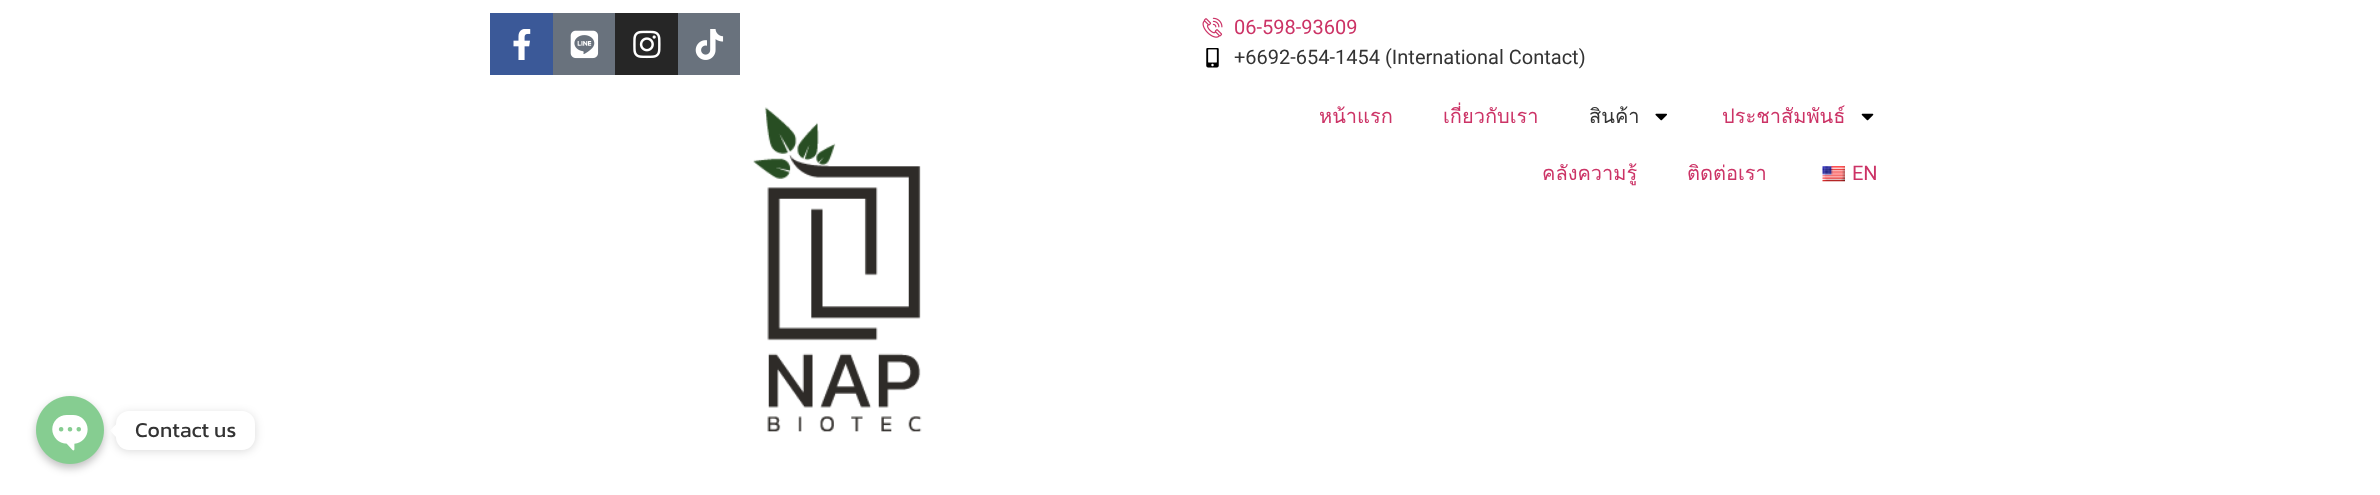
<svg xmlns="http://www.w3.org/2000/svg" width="2380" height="495">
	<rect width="100%" height="100%" fill="#FFFFFF" />
	<rect x="490" y="13" width="63" height="62" fill="#3B5998" />
	<image x="513" y="29" width="18" height="31" href="assets/img1.png" />
	<rect x="553" y="13" width="62" height="62" fill="#69727D" />
	<image x="570" y="30" width="29" height="29" href="assets/img2.png" />
	<rect x="615" y="13" width="63" height="62" fill="#262626" />
	<image x="633" y="30" width="28" height="29" href="assets/img3.png" />
	<rect x="678" y="13" width="62" height="62" fill="#69727D" />
	<image x="695" y="29" width="29" height="31" href="assets/img4.png" />
	<image x="1202" y="17" width="21" height="21" href="assets/img5.png" />
	<text x="1234" y="34" font-family="Roboto" font-size="20" fill="#CC3366">06-598-93609</text>
	<image x="1206" y="48" width="13" height="20" href="assets/img6.png" />
	<text x="1234" y="64" font-family="Roboto" font-size="20" fill="#333333">+6692-654-1454 (International Contact)</text>
	<image x="753" y="107" width="169" height="325" href="assets/img7.png" />
	<g font-family="Loma" font-size="20" fill="#CC3366">
		<text x="1319" y="123">หน้าแรก</text>
		<text x="1443" y="123">เกี่ยวกับเรา</text>
	</g>
	<text x="1589" y="123" font-family="Loma" font-size="20" fill="#333333">สินค้า</text>
	<image x="1655" y="113" width="12" height="8" href="assets/img8.png" />
	<text x="1722" y="123" font-family="Loma" font-size="20" fill="#CC3366">ประชาสัมพันธ์</text>
	<image x="1861" y="113" width="13" height="8" href="assets/img9.png" />
	<g font-family="Loma" font-size="20" fill="#CC3366">
		<text x="1542" y="180">คลังความรู้</text>
		<text x="1687" y="180">ติดต่อเรา</text>
	</g>
	<image x="1822" y="166" width="23" height="16" href="assets/img10.png" />
	<text x="1852" y="180" font-family="Roboto" font-size="20" fill="#CC3366">EN</text>
	<rect x="116" y="413" width="139" height="38" rx="13" fill="#000000" fill-opacity="0.15" filter="blur(5px)" />
	<rect x="116" y="411" width="139" height="39" rx="13" fill="#FFFFFF" />
	<path d="M116 424.5V437L110 430.5Z" fill="#FFFFFF" />
	<rect x="36" y="400" width="68" height="68" rx="34" fill="#000000" fill-opacity="0.25" filter="blur(4px)" />
	<image x="36" y="396" width="68" height="68" href="assets/img11.png" />
	<text x="135" y="437" font-family="Kanit" font-size="21.25" fill="#333333">Contact us</text>
</svg>
